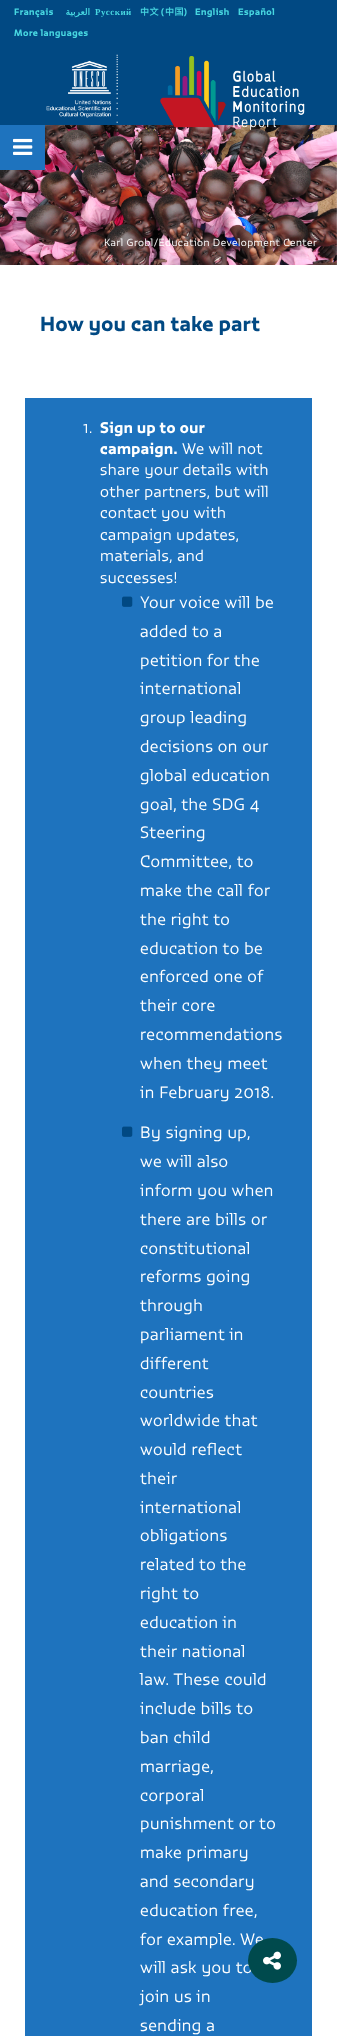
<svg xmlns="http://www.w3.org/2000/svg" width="337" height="2036">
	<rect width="100%" height="100%" fill="#FFFFFF" />
	<rect x="0" y="0" width="337" height="125" fill="#014983" />
	<text x="14" y="15" font-family="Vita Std" font-size="9" font-weight="700" letter-spacing="0.5" fill="#47D6E0">Français</text>
	<text x="90" y="15" font-family="DejaVu Sans" font-size="9" font-weight="700" letter-spacing="0.5" direction="rtl" fill="#47D6E0">العربية</text>
	<text x="95" y="15" font-family="Liberation Serif" font-size="9" font-weight="700" letter-spacing="0.5" fill="#47D6E0">Русский</text>
	<text x="140" y="15" font-family="Noto Sans CJK SC" font-size="9" font-weight="700" letter-spacing="0.5" fill="#47D6E0">中文</text>
	<text x="161" y="15" font-family="Vita Std" font-size="9" font-weight="700" letter-spacing="0.5" fill="#47D6E0">(</text>
	<text x="165" y="15" font-family="Noto Sans CJK SC" font-size="9" font-weight="700" letter-spacing="0.5" fill="#47D6E0">中国</text>
	<g font-family="Vita Std" font-size="9" font-weight="700" letter-spacing="0.5" fill="#47D6E0">
		<text x="184" y="15">)</text>
		<text x="195" y="15">English</text>
		<text x="238" y="15">Español</text>
		<text x="14" y="36">More languages</text>
	</g>
	<image x="0" y="125" width="337" height="140" href="assets/img4.png" />
	<image x="46" y="54" width="72" height="77" href="assets/img1.png" />
	<image x="160" y="56" width="145" height="75" href="assets/img2.png" />
	<rect x="0" y="125" width="45" height="45" fill="#1E73BE" />
	<image x="13" y="138" width="20" height="17" href="assets/img3.png" />
	<text x="104" y="246" font-family="Vita Std" font-size="10" font-weight="300" letter-spacing="0.5" fill="#FFFFFF">Karl Grobl/Education Development Center</text>
	<text x="40" y="331" font-family="Vita Std" font-size="20" font-weight="700" letter-spacing="0.5" fill="#014983">How you can take part</text>
	<rect x="25" y="398" width="287" height="1638" fill="#1E73BE" />
	<text x="83" y="433" font-family="Vita Std" font-size="15" font-weight="300" letter-spacing="0.5" fill="#FFFFFF">1.</text>
	<g font-family="Vita Std" font-size="15" font-weight="700" letter-spacing="0.5" fill="#FFFFFF">
		<text x="100" y="433">Sign up to our</text>
		<text x="100" y="454">campaign.</text>
	</g>
	<g font-family="Vita Std" font-size="15" font-weight="300" letter-spacing="0.5" fill="#FFFFFF">
		<text x="182" y="454">We will not</text>
		<text x="100" y="475">share your details with</text>
		<text x="100" y="497">other partners, but will</text>
		<text x="100" y="518">contact you with</text>
		<text x="100" y="540">campaign updates,</text>
		<text x="100" y="561">materials, and</text>
		<text x="100" y="583">successes!</text>
	</g>
	<image x="122" y="596" width="11" height="11" href="assets/img5.png" />
	<g font-family="Vita Std" font-size="16" font-weight="300" letter-spacing="0.5" fill="#FFFFFF">
		<text x="140" y="608">Your voice will be</text>
		<text x="140" y="637">added to a</text>
		<text x="140" y="666">petition for the</text>
		<text x="140" y="694">international</text>
		<text x="140" y="723">group leading</text>
		<text x="140" y="752">decisions on our</text>
		<text x="140" y="781">global education</text>
		<text x="140" y="810">goal, the SDG 4</text>
		<text x="140" y="838">Steering</text>
		<text x="140" y="867">Committee, to</text>
		<text x="140" y="896">make the call for</text>
		<text x="140" y="925">the right to</text>
		<text x="140" y="954">education to be</text>
		<text x="140" y="982">enforced one of</text>
		<text x="140" y="1011">their core</text>
		<text x="140" y="1040">recommendations</text>
		<text x="140" y="1069">when they meet</text>
		<text x="140" y="1098">in February 2018.</text>
	</g>
	<image x="122" y="1126" width="11" height="11" href="assets/img5.png" />
	<g font-family="Vita Std" font-size="16" font-weight="300" letter-spacing="0.5" fill="#FFFFFF">
		<text x="140" y="1138">By signing up,</text>
		<text x="140" y="1167">we will also</text>
		<text x="140" y="1196">inform you when</text>
		<text x="140" y="1225">there are bills or</text>
		<text x="140" y="1254">constitutional</text>
		<text x="140" y="1282">reforms going</text>
		<text x="140" y="1311">through</text>
		<text x="140" y="1340">parliament in</text>
		<text x="140" y="1369">different</text>
		<text x="140" y="1398">countries</text>
		<text x="140" y="1426">worldwide that</text>
		<text x="140" y="1455">would reflect</text>
		<text x="140" y="1484">their</text>
		<text x="140" y="1513">international</text>
		<text x="140" y="1541">obligations</text>
		<text x="140" y="1570">related to the</text>
		<text x="140" y="1599">right to</text>
		<text x="140" y="1628">education in</text>
		<text x="140" y="1657">their national</text>
		<text x="140" y="1685">law. These could</text>
		<text x="140" y="1714">include bills to</text>
		<text x="140" y="1743">ban child</text>
		<text x="140" y="1772">marriage,</text>
		<text x="140" y="1801">corporal</text>
		<text x="140" y="1829">punishment or to</text>
		<text x="140" y="1858">make primary</text>
		<text x="140" y="1887">and secondary</text>
		<text x="140" y="1916">education free,</text>
		<text x="140" y="1945">for example. We</text>
		<text x="140" y="1973">will ask you to</text>
		<text x="140" y="2002">join us in</text>
		<text x="140" y="2031">sending a</text>
	</g>
	<ellipse cx="272.5" cy="1960.5" rx="24.5" ry="22.5" fill="#004A4D" />
	<image x="263" y="1951" width="18" height="19" href="assets/img6.png" />
</svg>
